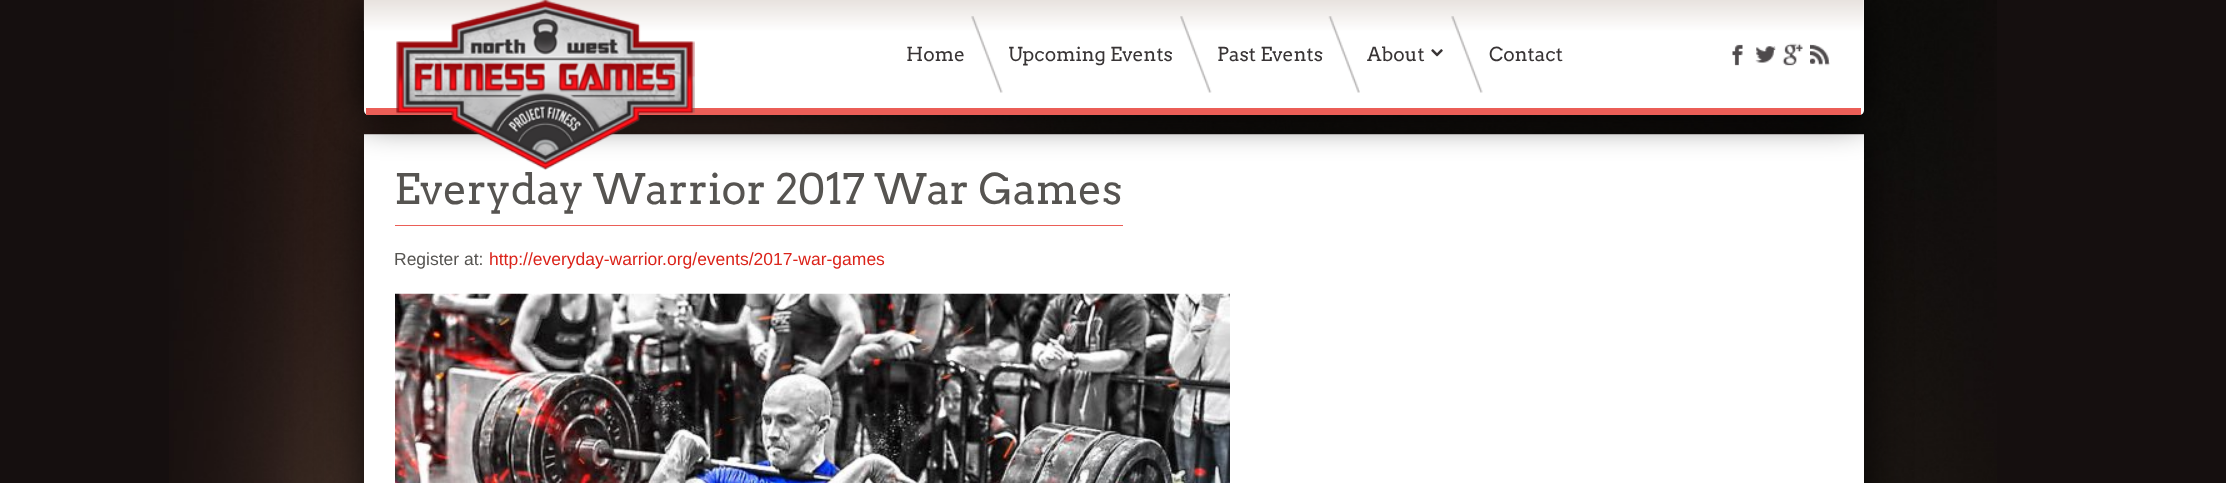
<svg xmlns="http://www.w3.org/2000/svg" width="2226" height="483">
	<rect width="100%" height="100%" fill="#150F0F" />
	<image x="169" y="0" width="1828" height="483" href="assets/img1.png" />
	<rect x="364" y="134" width="1500" height="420" rx="5" fill="#000000" fill-opacity="0.8" filter="blur(22px)" />
	<rect x="364" y="135" width="1500" height="348" fill="#FFFFFF" />
	<rect x="364" y="134" width="1500" height="1" fill="#CECBCB" />
	<rect x="364" y="0" width="1500" height="115" rx="5" fill="#000000" filter="blur(19px)" />
	<path d="M364 0H1864V110C1864 113 1862 115 1859 115H369C366 115 364 113 364 110Z" fill="#FFFFFF" />
	<image x="363" y="0" width="1501" height="31" href="assets/img2.png" />
	<rect x="366" y="108" width="1495" height="7" fill="#EB5E57" />
	<image x="396" y="0" width="299" height="170" href="assets/img3.png" />
	<image x="971" y="16" width="32" height="77" href="assets/img4.png" />
	<text x="906" y="61" font-family="Arvo" font-size="19.25" fill="#383435">Home</text>
	<image x="1180" y="16" width="32" height="77" href="assets/img5.png" />
	<text x="1008" y="61" font-family="Arvo" font-size="19.25" fill="#383435">Upcoming Events</text>
	<image x="1328" y="16" width="32" height="77" href="assets/img6.png" />
	<text x="1217" y="61" font-family="Arvo" font-size="19.25" fill="#383435">Past Events</text>
	<image x="1451" y="16" width="32" height="77" href="assets/img4.png" />
	<text x="1367" y="61" font-family="Arvo" font-size="19.25" fill="#383435">About</text>
	<image x="1431" y="49" width="12" height="8" href="assets/img7.png" />
	<text x="1489" y="61" font-family="Arvo" font-size="19.25" fill="#383435">Contact</text>
	<image x="1732" y="44" width="11" height="22" href="assets/img8.png" />
	<image x="1755" y="46" width="21" height="17" href="assets/img9.png" />
	<image x="1782" y="43" width="21" height="23" href="assets/img10.png" />
	<image x="1810" y="44" width="20" height="22" href="assets/img11.png" />
	<rect x="395" y="225" width="728" height="1" fill="#EB5E57" />
	<text x="394" y="204" font-family="Arvo" font-size="42" fill="#565451">Everyday Warrior 2017 War Games</text>
	<text x="394" y="265" font-family="Liberation Sans" font-size="17.5" fill="#565451">Register at:</text>
	<text x="489" y="265" font-family="Liberation Sans" font-size="17.5" fill="#DB231A">http://everyday-warrior.org/events/2017-war-games</text>
	<image x="395" y="293" width="835" height="190" href="assets/img12.png" />
</svg>
